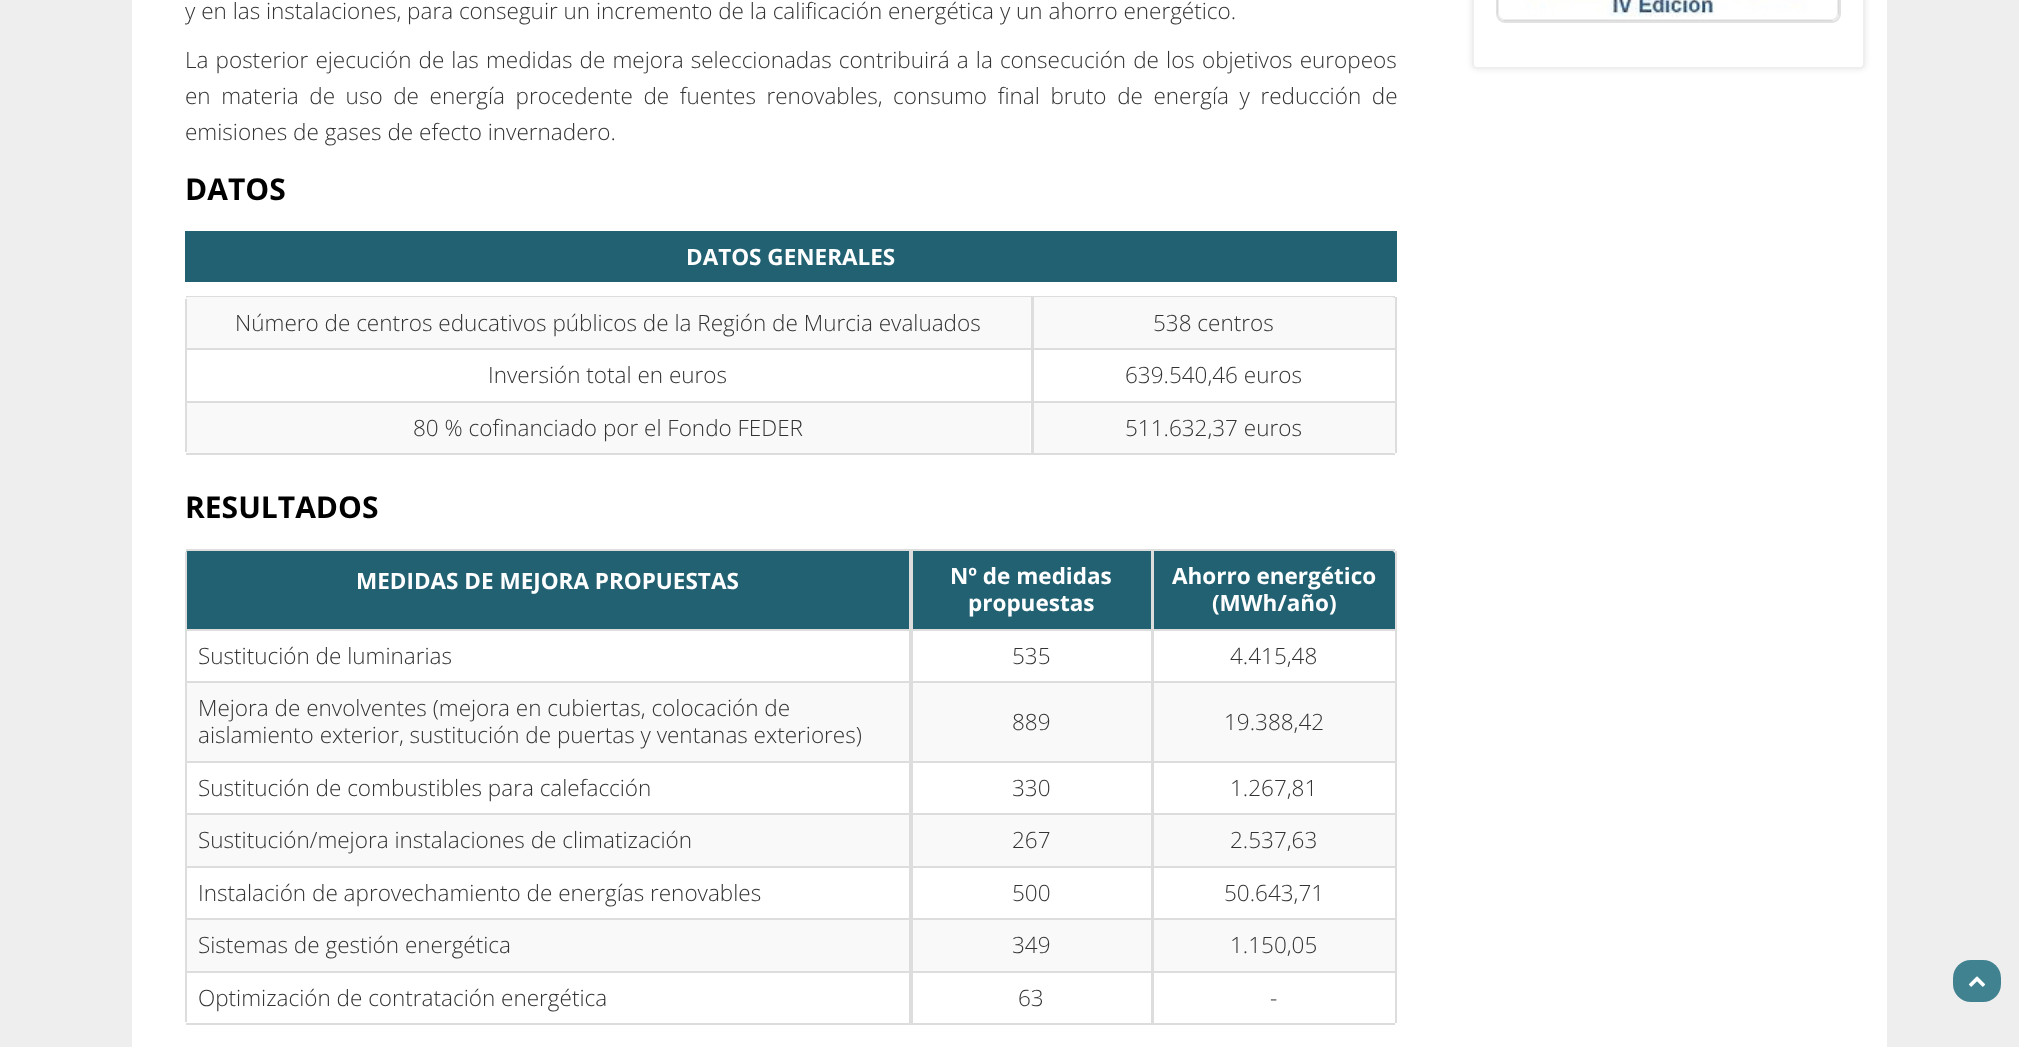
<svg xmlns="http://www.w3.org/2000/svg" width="2019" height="1047">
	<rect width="100%" height="100%" fill="#EEEEEE" />
	<rect x="132" y="0" width="1755" height="1047" fill="#FFFFFF" />
	<g font-family="Open Sans" font-size="22.5" font-weight="300" fill="#333333">
		<text x="185" y="19">y en las instalaciones, para conseguir un incremento de la calificación energética y un ahorro energético.</text>
		<text x="185" y="68" word-spacing="1.25">La posterior ejecución de las medidas de mejora seleccionadas contribuirá a la consecución de los objetivos europeos</text>
		<text x="185" y="104" word-spacing="4.75">en materia de uso de energía procedente de fuentes renovables, consumo final bruto de energía y reducción de</text>
		<text x="185" y="140">emisiones de gases de efecto invernadero.</text>
	</g>
	<text x="185" y="200" font-family="Open Sans" font-size="30" font-weight="700" fill="#000000">DATOS</text>
	<rect x="185" y="231" width="1212" height="51" fill="#216172" />
	<text x="686" y="265" font-family="Open Sans" font-size="22.5" font-weight="700" fill="#FFFFFF">DATOS GENERALES</text>
	<rect x="186" y="296" width="1209" height="2" fill="#DDDDDD" />
	<rect x="1395" y="297" width="2" height="156" fill="#DDDDDD" />
	<rect x="186" y="453" width="1209" height="2" fill="#DDDDDD" />
	<path d="M188 297H1032V348H185V300C185 298.5 186.5 297 188 297Z" fill="#F9F9F9" />
	<rect x="1031" y="297" width="1" height="51" fill="#DDDDDD" />
	<rect x="185" y="299" width="2" height="49" fill="#DDDDDD" />
	<text x="235" y="331" font-family="Open Sans" font-size="22.5" font-weight="300" fill="#333333">Número de centros educativos públicos de la Región de Murcia evaluados</text>
	<path d="M1032 297H1392C1393.5 297 1395 298.5 1395 300V348H1032Z" fill="#F9F9F9" />
	<rect x="1032" y="297" width="2" height="51" fill="#DDDDDD" />
	<text x="1153" y="331" font-family="Open Sans" font-size="22.5" font-weight="300" fill="#333333">538 centros</text>
	<rect x="185" y="348" width="1210" height="2" fill="#DDDDDD" />
	<rect x="1031" y="348" width="3" height="53" fill="#DDDDDD" />
	<rect x="185" y="348" width="2" height="53" fill="#DDDDDD" />
	<g font-family="Open Sans" font-size="22.5" font-weight="300" fill="#333333">
		<text x="488" y="383">Inversión total en euros</text>
		<text x="1125" y="383">639.540,46 euros</text>
	</g>
	<path d="M186 402H1030V453H188C187 453 186 452 186 450Z" fill="#F9F9F9" />
	<rect x="185" y="401" width="847" height="2" fill="#DDDDDD" />
	<rect x="1031" y="401" width="1" height="52" fill="#DDDDDD" />
	<rect x="185" y="401" width="2" height="51" fill="#DDDDDD" />
	<text x="413" y="436" font-family="Open Sans" font-size="22.5" font-weight="300" fill="#333333">80 % cofinanciado por el Fondo FEDER</text>
	<path d="M1034 402H1395V450C1395 451.5 1393.5 453 1392 453H1034Z" fill="#F9F9F9" />
	<rect x="1032" y="401" width="363" height="2" fill="#DDDDDD" />
	<rect x="1032" y="401" width="2" height="52" fill="#DDDDDD" />
	<text x="1125" y="436" font-family="Open Sans" font-size="22.5" font-weight="300" fill="#333333">511.632,37 euros</text>
	<text x="185" y="518" font-family="Open Sans" font-size="30" font-weight="700" fill="#000000">RESULTADOS</text>
	<rect x="186" y="549" width="1209" height="2" fill="#DDDDDD" />
	<rect x="1395" y="551" width="2" height="472" fill="#DDDDDD" />
	<rect x="186" y="1023" width="1209" height="2" fill="#DDDDDD" />
	<path d="M188 551H911V629H185V554C185 552.5 186.5 551 188 551Z" fill="#216172" />
	<rect x="909" y="551" width="4" height="78" fill="#DDDDDD" />
	<rect x="185" y="552" width="2" height="77" fill="#DDDDDD" />
	<text x="356" y="589" font-family="Open Sans" font-size="22.5" font-weight="700" fill="#FFFFFF">MEDIDAS DE MEJORA PROPUESTAS</text>
	<rect x="913" y="551" width="238" height="78" fill="#216172" />
	<rect x="1151" y="551" width="1" height="78" fill="#DDDDDD" />
	<g font-family="Open Sans" font-size="22.5" font-weight="700" fill="#FFFFFF">
		<text x="950" y="584">Nº de medidas</text>
		<text x="968" y="611">propuestas</text>
	</g>
	<path d="M1152 551H1392C1393.5 551 1395 552.5 1395 554V629H1152Z" fill="#216172" />
	<rect x="1152" y="551" width="2" height="78" fill="#DDDDDD" />
	<g font-family="Open Sans" font-size="22.5" font-weight="700" fill="#FFFFFF">
		<text x="1172" y="584">Ahorro energético</text>
		<text x="1212" y="611">(MWh/año)</text>
	</g>
	<rect x="185" y="629" width="1210" height="2" fill="#DDDDDD" />
	<rect x="909" y="629" width="4" height="52" fill="#DDDDDD" />
	<rect x="185" y="629" width="2" height="52" fill="#DDDDDD" />
	<text x="198" y="664" font-family="Open Sans" font-size="22.5" font-weight="300" fill="#333333">Sustitución de luminarias</text>
	<rect x="1151" y="629" width="3" height="52" fill="#DDDDDD" />
	<g font-family="Open Sans" font-size="22.5" font-weight="300" fill="#333333">
		<text x="1012" y="664">535</text>
		<text x="1230" y="664">4.415,48</text>
	</g>
	<rect x="187" y="683" width="722" height="78" fill="#F9F9F9" />
	<rect x="185" y="681" width="1210" height="2" fill="#DDDDDD" />
	<rect x="909" y="681" width="4" height="80" fill="#DDDDDD" />
	<rect x="185" y="681" width="2" height="80" fill="#DDDDDD" />
	<g font-family="Open Sans" font-size="22.5" font-weight="300" fill="#333333">
		<text x="198" y="716">Mejora de envolventes (mejora en cubiertas, colocación de</text>
		<text x="198" y="743">aislamiento exterior, sustitución de puertas y ventanas exteriores)</text>
	</g>
	<rect x="913" y="683" width="238" height="78" fill="#F9F9F9" />
	<rect x="1151" y="681" width="3" height="80" fill="#DDDDDD" />
	<text x="1012" y="730" font-family="Open Sans" font-size="22.5" font-weight="300" fill="#333333">889</text>
	<rect x="1154" y="683" width="241" height="78" fill="#F9F9F9" />
	<text x="1224" y="730" font-family="Open Sans" font-size="22.5" font-weight="300" fill="#333333">19.388,42</text>
	<rect x="185" y="761" width="1210" height="2" fill="#DDDDDD" />
	<rect x="909" y="761" width="4" height="52" fill="#DDDDDD" />
	<rect x="185" y="761" width="2" height="52" fill="#DDDDDD" />
	<text x="198" y="796" font-family="Open Sans" font-size="22.5" font-weight="300" fill="#333333">Sustitución de combustibles para calefacción</text>
	<rect x="1151" y="761" width="3" height="52" fill="#DDDDDD" />
	<g font-family="Open Sans" font-size="22.5" font-weight="300" fill="#333333">
		<text x="1012" y="796">330</text>
		<text x="1230" y="796">1.267,81</text>
	</g>
	<rect x="187" y="815" width="722" height="51" fill="#F9F9F9" />
	<rect x="185" y="813" width="1210" height="2" fill="#DDDDDD" />
	<rect x="909" y="813" width="4" height="53" fill="#DDDDDD" />
	<rect x="185" y="813" width="2" height="53" fill="#DDDDDD" />
	<text x="198" y="848" font-family="Open Sans" font-size="22.5" font-weight="300" fill="#333333">Sustitución/mejora instalaciones de climatización</text>
	<rect x="913" y="815" width="238" height="51" fill="#F9F9F9" />
	<rect x="1151" y="813" width="3" height="53" fill="#DDDDDD" />
	<text x="1012" y="848" font-family="Open Sans" font-size="22.5" font-weight="300" fill="#333333">267</text>
	<rect x="1154" y="815" width="241" height="51" fill="#F9F9F9" />
	<text x="1230" y="848" font-family="Open Sans" font-size="22.5" font-weight="300" fill="#333333">2.537,63</text>
	<rect x="185" y="866" width="1210" height="2" fill="#DDDDDD" />
	<rect x="909" y="866" width="4" height="52" fill="#DDDDDD" />
	<rect x="185" y="866" width="2" height="52" fill="#DDDDDD" />
	<text x="198" y="901" font-family="Open Sans" font-size="22.5" font-weight="300" fill="#333333">Instalación de aprovechamiento de energías renovables</text>
	<rect x="1151" y="866" width="3" height="52" fill="#DDDDDD" />
	<g font-family="Open Sans" font-size="22.5" font-weight="300" fill="#333333">
		<text x="1012" y="901">500</text>
		<text x="1224" y="901">50.643,71</text>
	</g>
	<rect x="187" y="920" width="722" height="51" fill="#F9F9F9" />
	<rect x="185" y="918" width="1210" height="2" fill="#DDDDDD" />
	<rect x="909" y="918" width="4" height="53" fill="#DDDDDD" />
	<rect x="185" y="918" width="2" height="53" fill="#DDDDDD" />
	<text x="198" y="953" font-family="Open Sans" font-size="22.5" font-weight="300" fill="#333333">Sistemas de gestión energética</text>
	<rect x="913" y="920" width="238" height="51" fill="#F9F9F9" />
	<rect x="1151" y="918" width="3" height="53" fill="#DDDDDD" />
	<text x="1012" y="953" font-family="Open Sans" font-size="22.5" font-weight="300" fill="#333333">349</text>
	<rect x="1154" y="920" width="241" height="51" fill="#F9F9F9" />
	<text x="1230" y="953" font-family="Open Sans" font-size="22.5" font-weight="300" fill="#333333">1.150,05</text>
	<rect x="185" y="971" width="1210" height="2" fill="#DDDDDD" />
	<rect x="909" y="971" width="4" height="52" fill="#DDDDDD" />
	<rect x="185" y="971" width="2" height="51" fill="#DDDDDD" />
	<text x="198" y="1006" font-family="Open Sans" font-size="22.5" font-weight="300" fill="#333333">Optimización de contratación energética</text>
	<rect x="1151" y="971" width="3" height="52" fill="#DDDDDD" />
	<g font-family="Open Sans" font-size="22.5" font-weight="300" fill="#333333">
		<text x="1018" y="1006">63</text>
		<text x="1270" y="1006">-</text>
	</g>
	<rect x="1472" y="-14" width="393" height="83" rx="5" fill="#000000" fill-opacity="0.1" filter="blur(3px)" />
	<rect x="1473" y="-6" width="391" height="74" rx="4" fill="#FFFFFF" stroke="#EFEFEF" stroke-width="2" />
	<rect x="1497" y="-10" width="343" height="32" rx="8" fill="none" stroke="#E2E2E2" stroke-width="2" />
	<image x="1497" y="0" width="342" height="21" href="assets/img1.png" />
	<rect x="1953" y="960" width="48" height="42" rx="18" fill="#418291" />
	<image x="1968" y="976" width="18" height="11" href="assets/img2.png" />
</svg>
